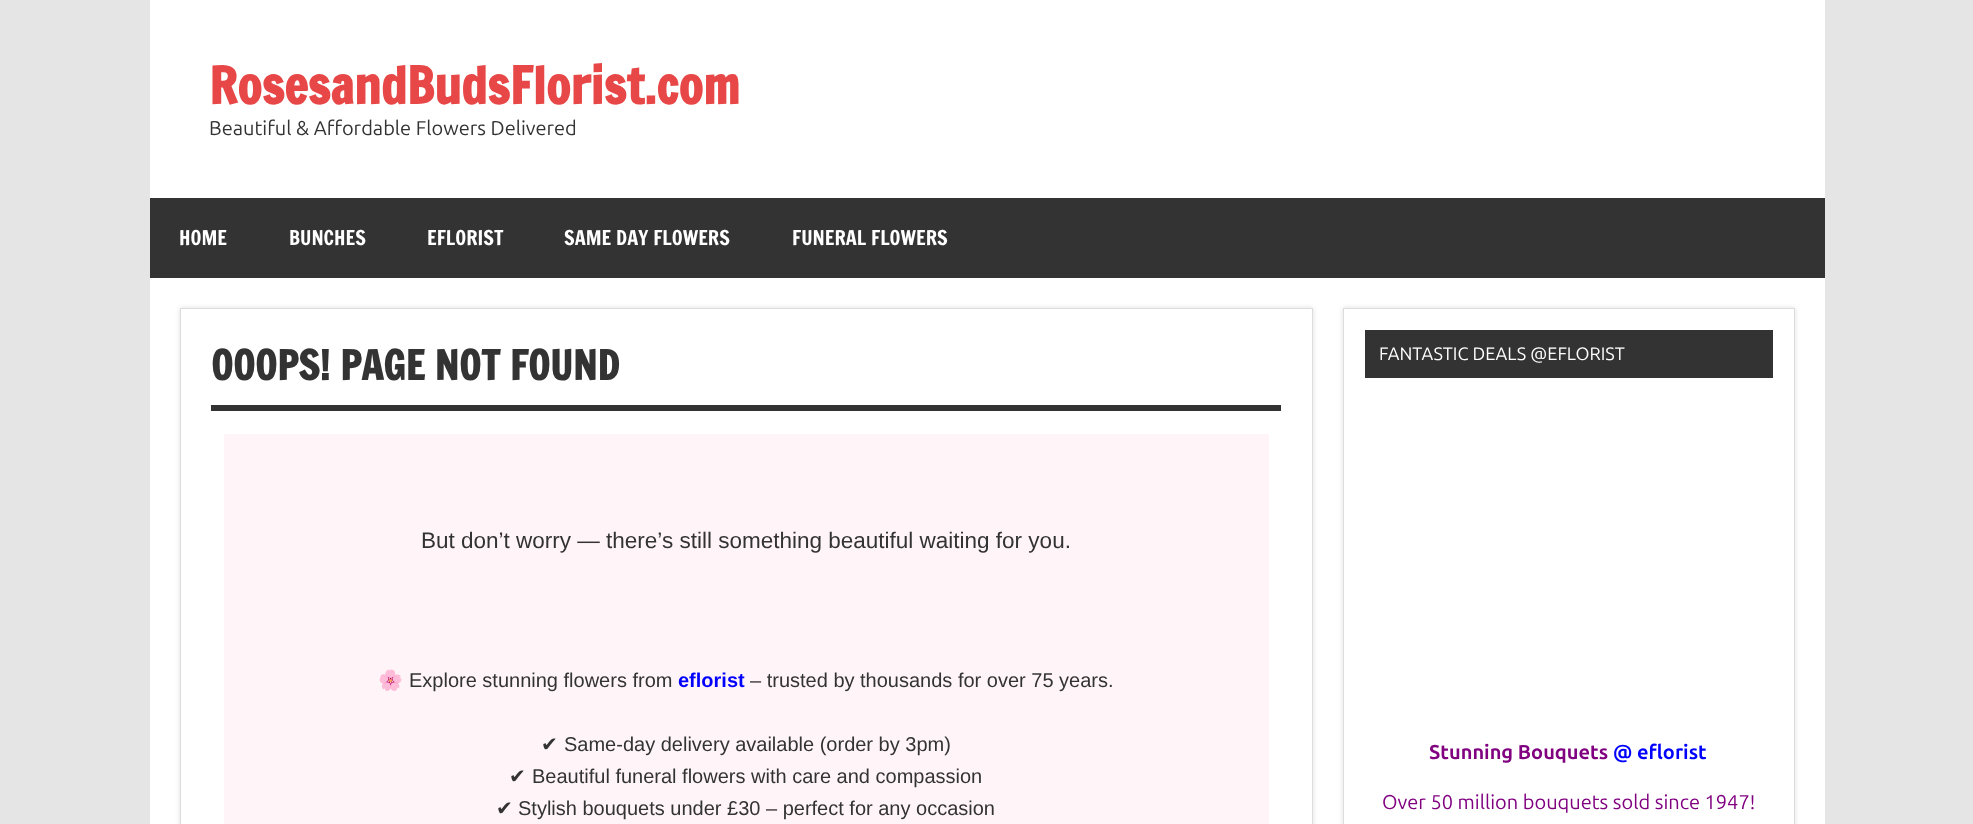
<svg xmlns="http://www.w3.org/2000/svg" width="1973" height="824">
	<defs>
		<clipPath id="clip1"><path d="M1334 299H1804V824H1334ZM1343 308H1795V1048H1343Z" clip-rule="evenodd" /></clipPath>
	</defs>
	<rect width="100%" height="100%" fill="#E5E5E5" />
	<rect x="150" y="0" width="1675" height="824" fill="#FFFFFF" />
	<text x="209" y="104" font-family="Francois One" font-size="50" font-weight="700" fill="#E84747">RosesandBudsFlorist.com</text>
	<text x="209" y="135" font-family="Ubuntu" font-size="20" fill="#333333">Beautiful &amp; Affordable Flowers Delivered</text>
	<rect x="150" y="198" width="1675" height="80" fill="#333333" />
	<g font-family="Francois One" font-size="20" fill="#FFFFFF">
		<text x="179" y="245">HOME</text>
		<text x="289" y="245">BUNCHES</text>
		<text x="427" y="245">EFLORIST</text>
		<text x="564" y="245">SAME DAY FLOWERS</text>
		<text x="792" y="245">FUNERAL FLOWERS</text>
	</g>
	<rect x="180" y="308" width="1133" height="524" fill="#DDDDDD" filter="blur(2.5px)" />
	<rect x="180.5" y="308.5" width="1132" height="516" fill="#FFFFFF" stroke="#DDDDDD" />
	<rect x="211" y="405" width="1070" height="6" fill="#333333" />
	<text x="211" y="380" font-family="Francois One" font-size="40" font-weight="700" fill="#333333">OOOPS! PAGE NOT FOUND</text>
	<rect x="224" y="434" width="1045" height="390" fill="#FFF5F8" />
	<text x="421" y="548" font-family="Liberation Sans" font-size="22.5" fill="#333333">But don’t worry — there’s still something beautiful waiting for you.</text>
	<text x="378" y="687" font-family="Noto Color Emoji" font-size="20" fill="#333333">🌸</text>
	<text x="409" y="687" font-family="Liberation Sans" font-size="20" fill="#333333">Explore stunning flowers from</text>
	<text x="678" y="687" font-family="Liberation Sans" font-size="20" font-weight="700" fill="#0000FF">eflorist</text>
	<text x="750" y="687" font-family="Liberation Sans" font-size="20" fill="#333333">– trusted by thousands for over 75 years.</text>
	<text x="541" y="751" font-family="DejaVu Sans" font-size="20" fill="#333333">✔</text>
	<text x="564" y="751" font-family="Liberation Sans" font-size="20" fill="#333333">Same-day delivery available (order by 3pm)</text>
	<text x="509" y="783" font-family="DejaVu Sans" font-size="20" fill="#333333">✔</text>
	<text x="532" y="783" font-family="Liberation Sans" font-size="20" fill="#333333">Beautiful funeral flowers with care and compassion</text>
	<text x="496" y="815" font-family="DejaVu Sans" font-size="20" fill="#333333">✔</text>
	<text x="518" y="815" font-family="Liberation Sans" font-size="20" fill="#333333">Stylish bouquets under £30 – perfect for any occasion</text>
	<g clip-path="url(#clip1)">
		<rect x="1343" y="308" width="452" height="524" fill="#DDDDDD" filter="blur(2.5px)" />
	</g>
	<rect x="1343.5" y="308.5" width="451" height="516" fill="none" stroke="#DDDDDD" />
	<rect x="1365" y="330" width="408" height="48" fill="#333333" />
	<text x="1379" y="360" font-family="Ubuntu" font-size="18" fill="#FFFFFF">FANTASTIC DEALS @EFLORIST</text>
	<text x="1429" y="759" font-family="Ubuntu" font-size="20" font-weight="700" fill="#800080">Stunning Bouquets</text>
	<text x="1613" y="759" font-family="Ubuntu" font-size="20" font-weight="700" fill="#0000FF">@ eflorist</text>
	<text x="1382" y="809" font-family="Ubuntu" font-size="20" fill="#800080">Over 50 million bouquets sold since 1947!</text>
</svg>
